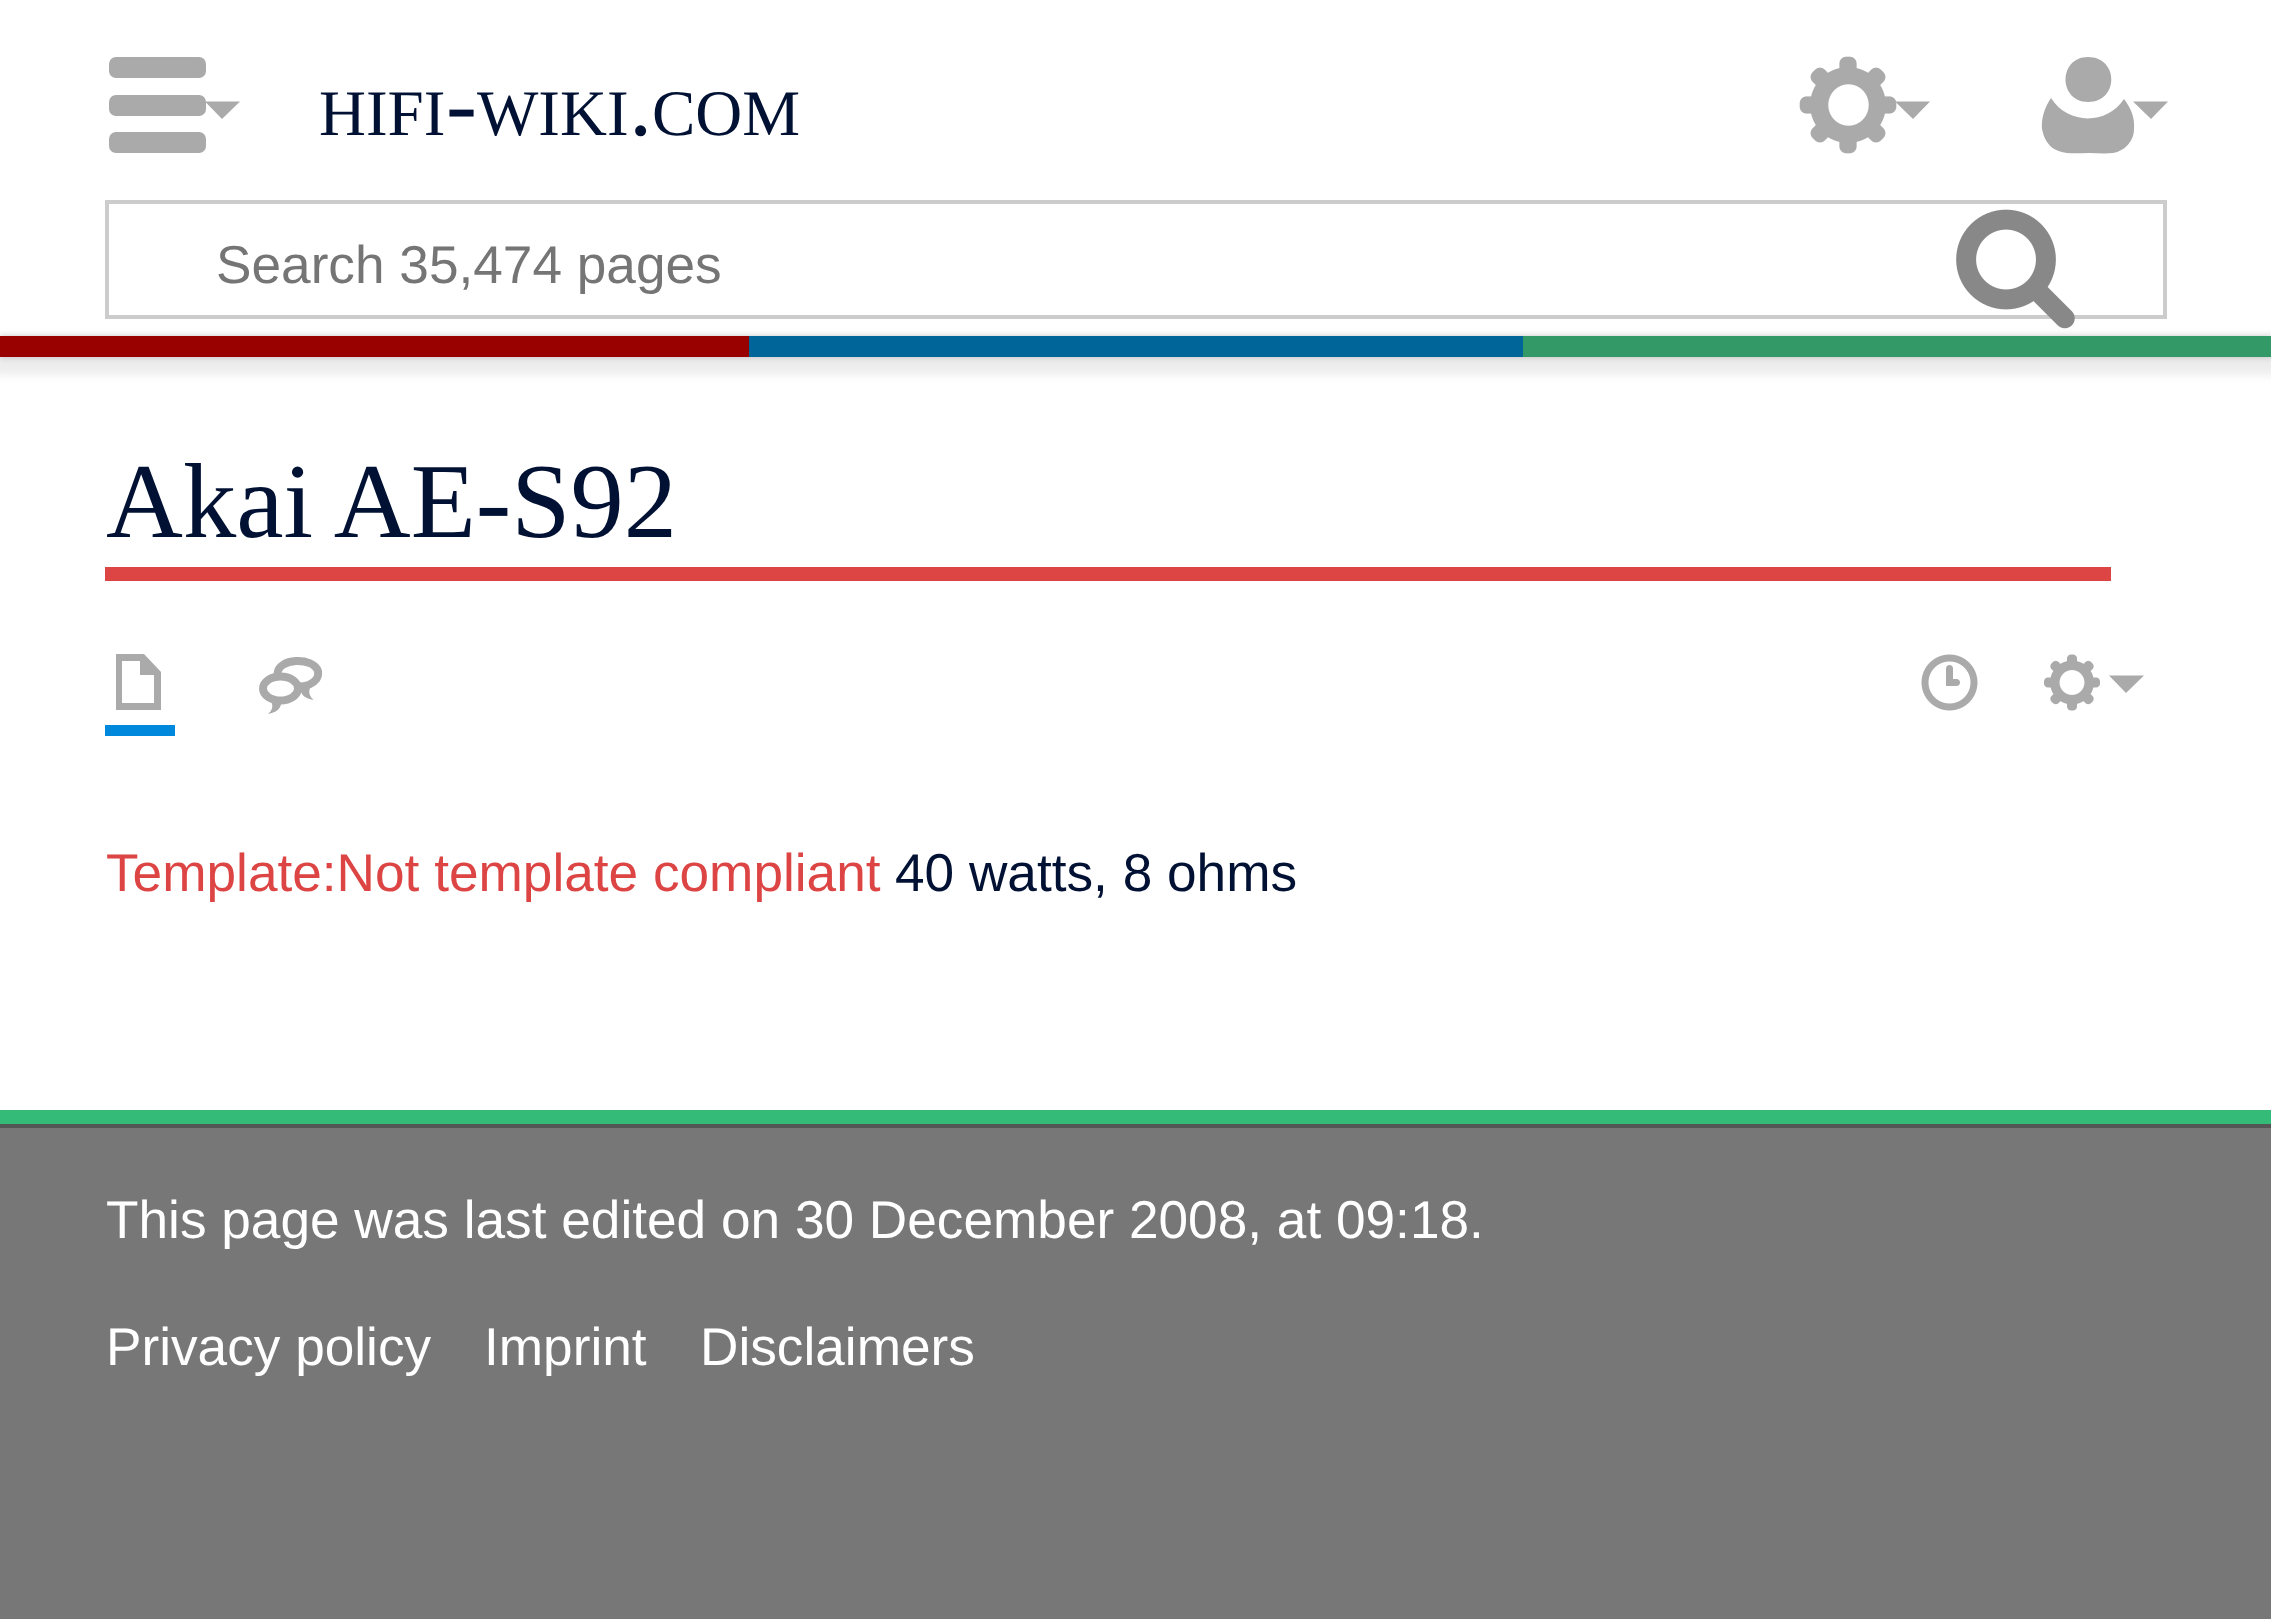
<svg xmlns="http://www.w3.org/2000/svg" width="2271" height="1619">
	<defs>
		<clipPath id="clip1"><rect x="217" y="235" width="1691" height="59" /></clipPath>
	</defs>
	<rect width="100%" height="100%" fill="#777777" />
	<rect x="0" y="0" width="2271" height="336" fill="#FFFFFF" />
	<text x="319" y="135" font-family="Liberation Serif" font-size="65" fill="#001133">HIFI</text>
	<text x="446" y="135" font-family="Liberation Serif" font-size="93" fill="#001133">-</text>
	<g font-family="Liberation Serif" font-size="65" fill="#001133">
		<text x="477" y="135">WIKI</text>
		<text x="652" y="135">COM</text>
	</g>
	<text x="629" y="135" font-family="Liberation Serif" font-size="93" fill="#001133">.</text>
	<path d="M2051 98C2045 107 2041 118 2042 129C2043 133 2044 138 2047 142C2056 156 2074 153 2089 153C2097 153 2105 154 2113 153C2125 151 2134 141 2134 129C2135 118 2131 108 2124 99C2107 125 2068 125 2051 98Z" fill="#AAAAAA" />
	<path d="M2088 57C2058 57 2058 102 2088 102C2119 102 2119 57 2088 57Z" fill="#AAAAAA" fill-rule="evenodd" />
	<path d="M2168 101.5L2151 119L2133 101.5Z" fill="#AAAAAA" />
	<rect x="107" y="202" width="2058" height="115" fill="none" stroke="#CCCCCC" stroke-width="4" />
	<g clip-path="url(#clip1)">
		<text x="216" y="283" font-family="Liberation Sans" font-size="53.2" fill="#757575">Search 35,474 pages</text>
	</g>
	<image x="1956" y="209" width="119" height="120" href="assets/img1.png" />
	<rect x="0" y="357" width="2271" height="753" fill="#FFFFFF" />
	<rect x="0" y="336" width="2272" height="21" fill="#000000" fill-opacity="0.2" filter="blur(3.5px)" />
	<rect x="-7" y="340" width="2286" height="35" fill="#000000" fill-opacity="0.07" filter="blur(5px)" />
	<rect x="0" y="336" width="749" height="21" fill="#990000" />
	<rect x="749" y="336" width="774" height="21" fill="#006699" />
	<rect x="1523" y="336" width="748" height="21" fill="#339966" />
	<rect x="0" y="1110" width="2271" height="14" fill="#33BB77" />
	<rect x="109" y="132" width="97" height="21" rx="7" fill="#AAAAAA" />
	<rect x="109" y="95" width="97" height="21" rx="7" fill="#AAAAAA" />
	<rect x="109" y="57" width="97" height="21" rx="7" fill="#AAAAAA" />
	<path d="M240 101.5L222 119L205 101.5Z" fill="#AAAAAA" />
	<image x="1799" y="56" width="98" height="98" href="assets/img2.png" />
	<path d="M1930 101.5L1913 119L1895 101.5Z" fill="#AAAAAA" />
	<rect x="105" y="567" width="2006" height="14" fill="#DD4444" />
	<text x="106" y="537" font-family="Liberation Serif" font-size="106.5" fill="#001133">Akai AE-S92</text>
	<rect x="105" y="725" width="70" height="11" fill="#0088DD" />
	<path d="M116 654V710H161V672L144 654ZM122 661H140V675H154V703H122Z" fill="#AAAAAA" fill-rule="evenodd" />
	<path d="M298 686.5C304.5 686.5 312.5 684.5 316.5 679C318 676.5 318.5 674 318 671C313 656.5 277.5 658 277.5 674" fill="none" stroke="#AAAAAA" stroke-width="7.9" />
	<ellipse cx="280.5" cy="688.5" rx="17.5" ry="12" fill="none" stroke="#AAAAAA" stroke-width="7.9" />
	<path d="M271.5 702C273.5 707.5 271.5 711 268 714C280.5 711.5 280 706.5 282 702ZM310 688C308 693.5 310.5 697 313.5 700C301.5 697.5 301.5 693 299.5 688Z" fill="#AAAAAA" fill-rule="evenodd" />
	<image x="1921" y="654" width="57" height="57" href="assets/img3.png" />
	<image x="2044" y="654" width="56" height="57" href="assets/img4.png" />
	<path d="M2144 675.5L2126 693L2109 675.5Z" fill="#AAAAAA" />
	<text x="106" y="891" font-family="Liberation Sans" font-size="53.2" fill="#DD4444">Template:Not template compliant</text>
	<text x="895" y="891" font-family="Liberation Sans" font-size="53.2" fill="#001133">40 watts, 8 ohms</text>
	<rect x="0" y="1124" width="2271" height="4" fill="#555555" />
	<g font-family="Liberation Sans" font-size="53.2" fill="#FFFFFF">
		<text x="106" y="1238">This page was last edited on 30 December 2008, at 09:18.</text>
		<text x="106" y="1365">Privacy policy</text>
		<text x="484" y="1365">Imprint</text>
		<text x="700" y="1365">Disclaimers</text>
	</g>
</svg>
